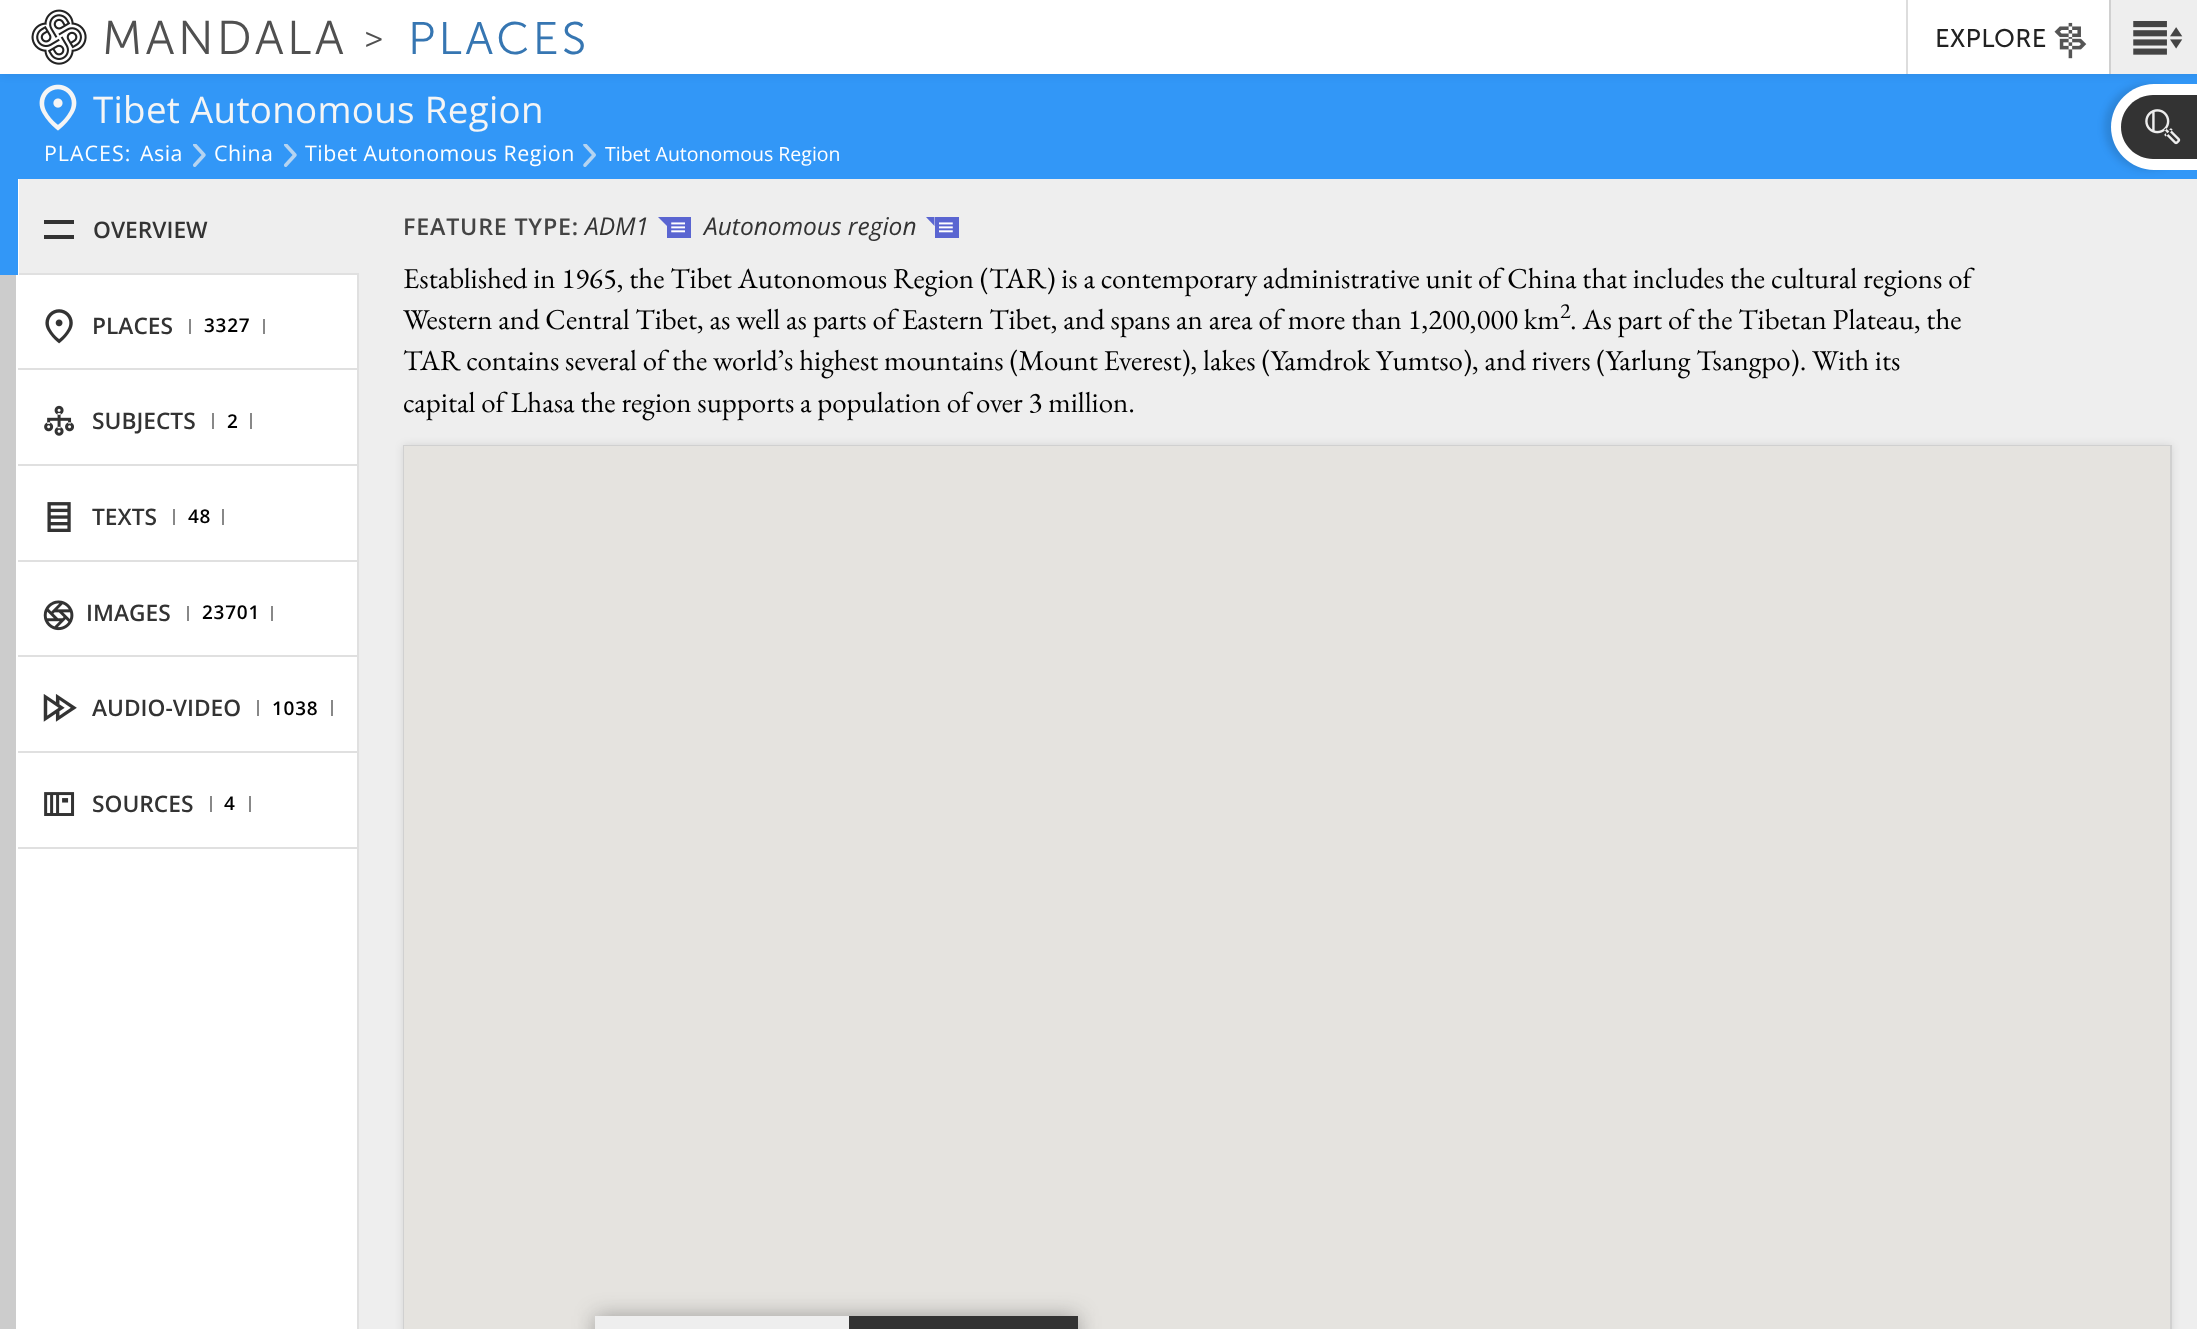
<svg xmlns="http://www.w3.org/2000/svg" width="2197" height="1329">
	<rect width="100%" height="100%" fill="#EEEEEE" />
	<rect x="0" y="74" width="2197" height="105" fill="#3297F7" />
	<image x="39" y="84" width="38" height="47" href="assets/img4.png" />
	<rect x="0" y="2" width="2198" height="73" fill="#000000" fill-opacity="0.07" filter="blur(4.5px)" />
	<rect x="0" y="0" width="1906" height="74" fill="#FFFFFF" />
	<image x="31" y="9" width="56" height="56" href="assets/img1.png" />
	<text x="102" y="54" font-family="Museo Sans" font-size="47.25" font-weight="300" letter-spacing="3.25" fill="#505050">MANDALA</text>
	<text x="364" y="49" font-family="Museo Sans" font-size="34" font-weight="300" letter-spacing="3.25" fill="#505050">&gt;</text>
	<text x="408" y="54" font-family="Museo Sans" font-size="45.5" font-weight="300" letter-spacing="3.25" fill="#3676B2">PLACES</text>
	<rect x="1906" y="0" width="2" height="74" fill="#DDDDDD" />
	<rect x="1908" y="0" width="201" height="74" fill="#FFFFFF" />
	<text x="1935" y="47" font-family="Museo Sans" font-size="24.5" font-weight="700" letter-spacing="1" fill="#222222">EXPLORE</text>
	<image x="2054" y="22" width="33" height="37" href="assets/img2.png" />
	<rect x="2109" y="0" width="2" height="74" fill="#D0D0D0" />
	<rect x="2111" y="0" width="86" height="74" fill="#EEEEEE" />
	<image x="2133" y="21" width="50" height="34" href="assets/img3.png" />
	<text x="93" y="123" font-family="Open Sans" font-size="36.75" letter-spacing="0.3" fill="#F5F5F5">Tibet Autonomous Region</text>
	<text x="44" y="161" font-family="Open Sans" font-size="21.4" letter-spacing="1" fill="#FFFFFF">PLACES:</text>
	<text x="140" y="161" font-family="Open Sans" font-size="21.4" letter-spacing="0.5" fill="#FFFFFF">Asia</text>
	<image x="193" y="144" width="13" height="23" href="assets/img5.png" />
	<text x="214" y="161" font-family="Open Sans" font-size="21.4" letter-spacing="0.5" fill="#FFFFFF">China</text>
	<image x="284" y="144" width="13" height="23" href="assets/img5.png" />
	<text x="305" y="161" font-family="Open Sans" font-size="21.4" letter-spacing="0.5" fill="#FFFFFF">Tibet Autonomous Region</text>
	<image x="583" y="144" width="13" height="23" href="assets/img6.png" />
	<text x="605" y="161" font-family="Open Sans" font-size="19.5" fill="#FFFFFF">Tibet Autonomous Region</text>
	<rect x="16" y="179" width="341" height="1150" fill="#FFFFFF" />
	<rect x="0" y="275" width="16" height="1054" fill="#CCCCCC" />
	<rect x="357" y="275" width="2" height="1054" fill="#E0E0E0" />
	<rect x="0" y="179" width="18" height="96" fill="#3297F7" />
	<rect x="19" y="179" width="338" height="94" fill="#EEEEEE" />
	<rect x="19" y="273" width="340" height="2" fill="#E0E0E0" />
	<path d="M44 239V235H74V239ZM44 224V220H74V224Z" fill="#333333" />
	<text x="93" y="238" font-family="Open Sans" font-size="22.75" font-weight="600" fill="#333333">OVERVIEW</text>
	<rect x="18" y="368" width="339" height="2" fill="#E0E0E0" />
	<image x="45" y="309" width="28" height="35" href="assets/img7.png" />
	<text x="92" y="334" font-family="Open Sans" font-size="22.75" font-weight="600" fill="#333333">PLACES</text>
	<rect x="263" y="319" width="2" height="15" fill="#888888" />
	<rect x="189" y="319" width="2" height="15" fill="#888888" />
	<text x="204" y="332" font-family="Open Sans" font-size="19" font-weight="600" letter-spacing="0.75" fill="#000000">3327</text>
	<rect x="18" y="464" width="339" height="2" fill="#E0E0E0" />
	<image x="44" y="405" width="30" height="31" href="assets/img8.png" />
	<text x="92" y="429" font-family="Open Sans" font-size="22.75" font-weight="600" fill="#333333">SUBJECTS</text>
	<rect x="250" y="413" width="2" height="16" fill="#888888" />
	<rect x="212" y="413" width="2" height="16" fill="#888888" />
	<text x="227" y="428" font-family="Open Sans" font-size="19" font-weight="600" letter-spacing="0.75" fill="#000000">2</text>
	<rect x="18" y="560" width="339" height="2" fill="#E0E0E0" />
	<image x="47" y="502" width="24" height="30" href="assets/img9.png" />
	<text x="92" y="525" font-family="Open Sans" font-size="22.75" font-weight="600" fill="#333333">TEXTS</text>
	<rect x="222" y="509" width="2" height="16" fill="#888888" />
	<rect x="173" y="509" width="2" height="16" fill="#888888" />
	<text x="188" y="523" font-family="Open Sans" font-size="19" font-weight="600" letter-spacing="0.75" fill="#000000">48</text>
	<rect x="18" y="655" width="339" height="2" fill="#E0E0E0" />
	<image x="43" y="600" width="31" height="31" href="assets/img10.png" />
	<text x="86" y="621" font-family="Open Sans" font-size="22.75" font-weight="600" fill="#333333">IMAGES</text>
	<rect x="271" y="606" width="2" height="15" fill="#888888" />
	<rect x="187" y="606" width="2" height="15" fill="#888888" />
	<text x="202" y="619" font-family="Open Sans" font-size="19" font-weight="600" letter-spacing="0.75" fill="#000000">23701</text>
	<rect x="18" y="751" width="339" height="2" fill="#E0E0E0" />
	<image x="43" y="694" width="34" height="28" href="assets/img11.png" />
	<text x="92" y="716" font-family="Open Sans" font-size="22.75" font-weight="600" fill="#333333">AUDIO-VIDEO</text>
	<rect x="331" y="700" width="2" height="16" fill="#888888" />
	<rect x="257" y="700" width="2" height="16" fill="#888888" />
	<text x="272" y="715" font-family="Open Sans" font-size="19" font-weight="600" letter-spacing="0.75" fill="#000000">1038</text>
	<rect x="18" y="847" width="339" height="2" fill="#E0E0E0" />
	<image x="44" y="792" width="31" height="24" href="assets/img12.png" />
	<text x="92" y="812" font-family="Open Sans" font-size="22.75" font-weight="600" fill="#333333">SOURCES</text>
	<rect x="249" y="796" width="2" height="16" fill="#888888" />
	<rect x="210" y="796" width="2" height="16" fill="#888888" />
	<text x="224" y="810" font-family="Open Sans" font-size="19" font-weight="600" letter-spacing="0.75" fill="#000000">4</text>
	<text x="403" y="235" font-family="Open Sans" font-size="23.25" font-weight="600" letter-spacing="0.8" fill="#444444">FEATURE TYPE:</text>
	<text x="585" y="235" font-family="Open Sans" font-size="24.5" font-style="italic" fill="#333333">ADM1</text>
	<rect x="667" y="217" width="24" height="21" fill="#5A65D1" />
	<path d="M667 217V226L658 217Z" fill="#5A65D1" />
	<image x="671" y="222" width="14" height="11" href="assets/img13.png" />
	<text x="704" y="235" font-family="Open Sans" font-size="24.5" font-style="italic" fill="#333333">Autonomous region</text>
	<rect x="935" y="217" width="24" height="21" fill="#5A65D1" />
	<path d="M934.5 217V226L926 217Z" fill="#5A65D1" />
	<image x="939" y="222" width="14" height="11" href="assets/img14.png" />
	<g font-family="EB Garamond" font-size="28.9" fill="#000000">
		<text x="403" y="288">Established in 1965, the Tibet Autonomous Region (TAR) is a contemporary administrative unit of China that includes the cultural regions of</text>
		<text x="403" y="329">Western and Central Tibet, as well as parts of Eastern Tibet, and spans an area of more than 1,200,000 km</text>
	</g>
	<text x="1560" y="318" font-family="EB Garamond" font-size="22" fill="#000000">2</text>
	<g font-family="EB Garamond" font-size="28.9" fill="#000000">
		<text x="1570" y="329">. As part of the Tibetan Plateau, the</text>
		<text x="403" y="370">TAR contains several of the world’s highest mountains (Mount Everest), lakes (Yamdrok Yumtso), and rivers (Yarlung Tsangpo). With its</text>
		<text x="403" y="412">capital of Lhasa the region supports a population of over 3 million.</text>
	</g>
	<rect x="403" y="445" width="1769" height="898" fill="#000000" fill-opacity="0.1" filter="blur(4.5px)" />
	<rect x="404" y="446" width="1767" height="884" fill="none" stroke="#D0D0D0" stroke-width="2" />
	<rect x="404" y="446" width="1766" height="883" fill="#E5E3DF" />
	<rect x="595" y="1316" width="483" height="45" fill="#323232" fill-opacity="0.4" filter="blur(10.5px)" />
	<rect x="595" y="1316" width="254" height="13" fill="#EEEEEE" />
	<rect x="849" y="1316" width="229" height="13" fill="#333333" />
	<rect x="2104" y="84" width="87" height="86" rx="43" fill="#000000" fill-opacity="0.12" filter="blur(3.5px)" />
	<path d="M2154 84H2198V170H2154C2130.5 170 2111 150.5 2111 127C2111 103.5 2130.5 84 2154 84Z" fill="#FFFFFF" />
	<path d="M2153 95H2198V159H2153C2135.5 159 2121 144.5 2121 127C2121 109.5 2135.5 95 2153 95Z" fill="#333333" />
	<image x="2145" y="109" width="36" height="36" href="assets/img15.png" />
</svg>
